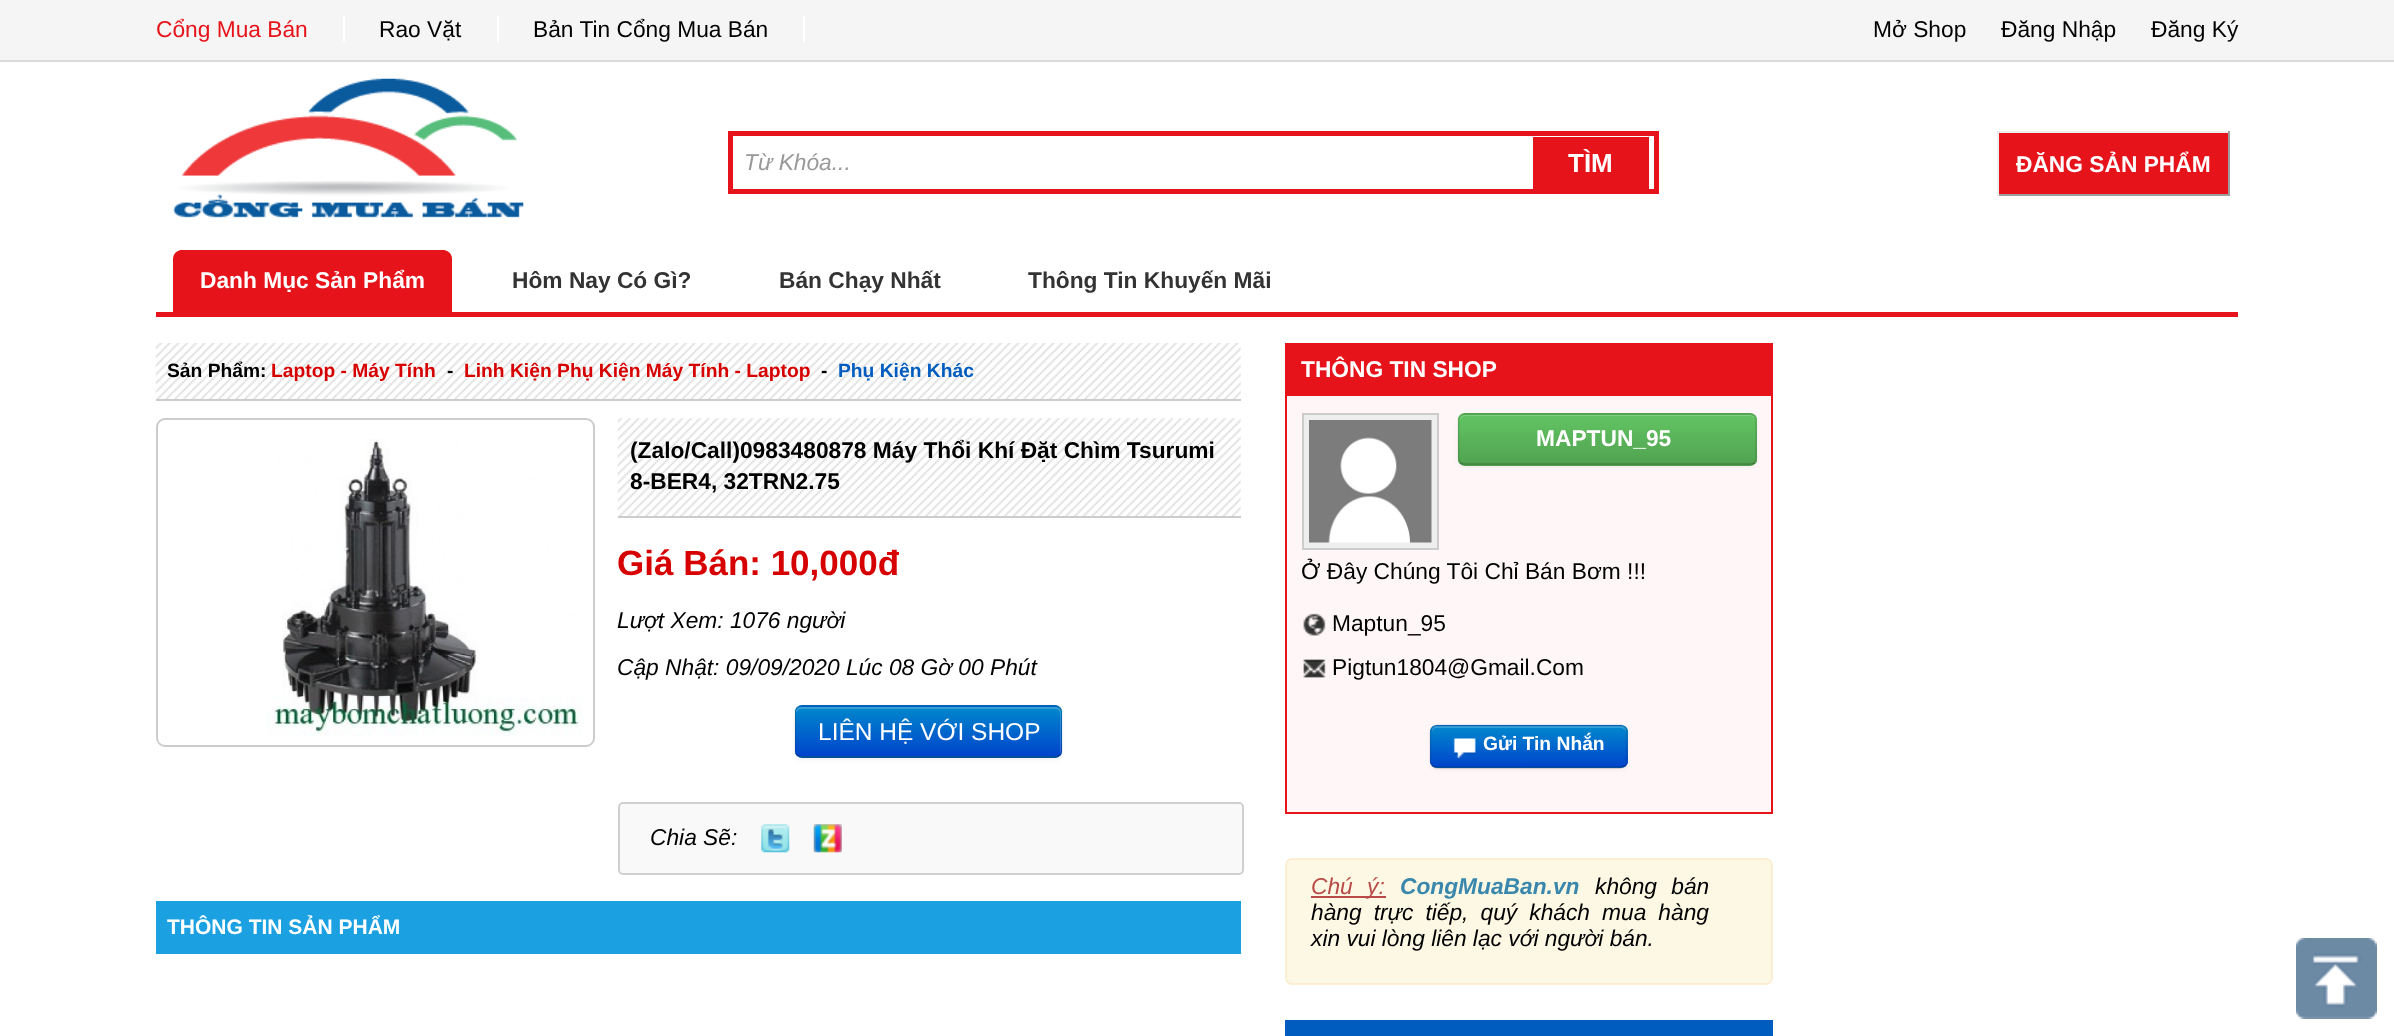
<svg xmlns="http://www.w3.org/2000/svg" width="2394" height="1036">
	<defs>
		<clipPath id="clip1"><rect x="795" y="705" width="267" height="53" rx="7" /></clipPath>
		<linearGradient id="g1" gradientUnits="userSpaceOnUse" x1="928" y1="707" x2="928" y2="756"><stop offset="0" stop-color="#0088CC" /><stop offset="1" stop-color="#0044CC" /></linearGradient>
		<clipPath id="clip2"><rect x="1458" y="413" width="299" height="53" rx="7" /></clipPath>
		<linearGradient id="g2" gradientUnits="userSpaceOnUse" x1="1607" y1="415" x2="1607" y2="464"><stop offset="0" stop-color="#62C462" /><stop offset="1" stop-color="#51A351" /></linearGradient>
		<clipPath id="clip3"><rect x="1430" y="725" width="198" height="43" rx="7" /></clipPath>
		<linearGradient id="g3" gradientUnits="userSpaceOnUse" x1="1529" y1="726" x2="1529" y2="767"><stop offset="0" stop-color="#0088CC" /><stop offset="1" stop-color="#0044CC" /></linearGradient>
	</defs>
	<rect width="100%" height="100%" fill="#FFFFFF" />
	<rect x="0" y="0" width="2394" height="60" fill="#F5F5F5" />
	<rect x="0" y="60" width="2394" height="2" fill="#DCDCDC" />
	<text x="156" y="37" font-family="Liberation Sans" font-size="22.75" fill="#E7131A">Cổng Mua Bán</text>
	<rect x="343" y="16" width="2" height="26" fill="#FFFFFF" />
	<text x="379" y="37" font-family="Liberation Sans" font-size="22.75" fill="#000000">Rao Vặt</text>
	<rect x="497" y="16" width="2" height="26" fill="#FFFFFF" />
	<text x="533" y="37" font-family="Liberation Sans" font-size="22.75" fill="#000000">Bản Tin Cổng Mua Bán</text>
	<rect x="803" y="16" width="2" height="26" fill="#FFFFFF" />
	<g font-family="Liberation Sans" font-size="22.75" fill="#000000">
		<text x="1873" y="37">Mở Shop</text>
		<text x="2001" y="37">Đăng Nhập</text>
		<text x="2151" y="37">Đăng Ký</text>
	</g>
	<image x="173" y="78" width="351" height="140" href="assets/img1.png" />
	<rect x="730.5" y="133.5" width="926" height="58" fill="none" stroke="#E7131A" stroke-width="5" />
	<text x="744" y="170" font-family="Liberation Sans" font-size="22.75" font-style="italic" fill="#999999">Từ Khóa...</text>
	<rect x="1533" y="137" width="116" height="52" fill="#E7131A" />
	<text x="1568" y="172" font-family="Liberation Sans" font-size="26" font-weight="700" fill="#FFFFFF">TÌM</text>
	<rect x="1999" y="133" width="229" height="61" fill="#E7131A" />
	<rect x="1997" y="131" width="233" height="2" fill="#EFEFEF" />
	<rect x="2228" y="131" width="2" height="65" fill="#9F9F9F" />
	<rect x="1997" y="194" width="233" height="2" fill="#9F9F9F" />
	<rect x="1997" y="131" width="2" height="65" fill="#EFEFEF" />
	<text x="2016" y="172" font-family="Liberation Sans" font-size="22.75" font-weight="700" fill="#FFFFFF">ĐĂNG SẢN PHẨM</text>
	<rect x="156" y="312" width="2082" height="5" fill="#E7131A" />
	<path d="M182 250H443C448 250 452 254 452 259V312H173V259C173 254 177 250 182 250Z" fill="#E7131A" />
	<text x="200" y="288" font-family="Liberation Sans" font-size="22.75" font-weight="700" fill="#FFFFFF">Danh Mục Sản Phẩm</text>
	<g font-family="Liberation Sans" font-size="22.75" font-weight="700" fill="#333333">
		<text x="512" y="288">Hôm Nay Có Gì?</text>
		<text x="779" y="288">Bán Chạy Nhất</text>
		<text x="1028" y="288">Thông Tin Khuyến Mãi</text>
	</g>
	<image x="155" y="343" width="1086" height="58" href="assets/img2.png" />
	<rect x="156" y="399" width="1085" height="2" fill="#CCCCCC" />
	<text x="167" y="377" font-family="Liberation Sans" font-size="19.25" font-weight="700" fill="#000000">Sản Phẩm:</text>
	<text x="271" y="377" font-family="Liberation Sans" font-size="19.25" font-weight="700" fill="#D70000">Laptop - Máy Tính</text>
	<text x="447" y="377" font-family="Liberation Sans" font-size="19.25" font-weight="700" fill="#000000">-</text>
	<text x="464" y="377" font-family="Liberation Sans" font-size="19.25" font-weight="700" fill="#D70000">Linh Kiện Phụ Kiện Máy Tính - Laptop</text>
	<text x="821" y="377" font-family="Liberation Sans" font-size="19.25" font-weight="700" fill="#000000">-</text>
	<text x="838" y="377" font-family="Liberation Sans" font-size="19.25" font-weight="700" fill="#005DBF">Phụ Kiện Khác</text>
	<rect x="157" y="419" width="437" height="327" rx="8" fill="none" stroke="#CCCCCC" stroke-width="2" />
	<image x="267" y="439" width="317" height="298" href="assets/img3.png" />
	<image x="617" y="418" width="624" height="100" href="assets/img4.png" />
	<rect x="618" y="516" width="623" height="2" fill="#CCCCCC" />
	<g font-family="Liberation Sans" font-size="22.75" font-weight="700" fill="#000000">
		<text x="630" y="458">(Zalo/Call)0983480878 Máy Thổi Khí Đặt Chìm Tsurumi</text>
		<text x="630" y="489">8-BER4, 32TRN2.75</text>
	</g>
	<text x="617" y="575" font-family="Liberation Sans" font-size="35" font-weight="700" fill="#D70000">Giá Bán: 10,000đ</text>
	<g font-family="Liberation Sans" font-size="22.75" font-style="italic" fill="#000000">
		<text x="617" y="628">Lượt Xem: 1076 người</text>
		<text x="617" y="675">Cập Nhật: 09/09/2020 Lúc 08 Gờ 00 Phút</text>
	</g>
	<rect x="795" y="707" width="267" height="53" rx="7" fill="#000000" fill-opacity="0.05" filter="blur(2px)" />
	<rect x="795" y="705" width="267" height="53" rx="7" fill="#006DCC" />
	<g clip-path="url(#clip1)">
		<rect x="795" y="707" width="267" height="49" fill="url(#g1)" />
	</g>
	<path d="M802 709H1055C1058 709 1060 711 1060 714V752V755C1060 754 1061 752 1061 751V712C1061 709 1059 707 1056 707H801C798 707 796 709 796 712V714C796 711 799 709 802 709Z" fill="#FFFFFF" fill-opacity="0.2" />
	<path d="M1059.5 755C1058.5 756 1057 757 1055 757H801.5C800 757 798.5 756 797 755" fill="none" stroke="#000000" stroke-opacity="0.25" stroke-width="1.8" />
	<path d="M797 755C796 754 795.5 752.5 795.5 751V712C795.5 710.5 796 709 797 708C798.5 707 800 706 801.5 706H1055C1057 706 1058.5 707 1059.5 708C1060.5 709 1061.5 710.5 1061.5 712V751C1061.5 752.5 1060.5 754 1059.5 755" fill="none" stroke="#000000" stroke-opacity="0.1" stroke-width="1.8" />
	<text x="818" y="740" font-family="Liberation Sans" font-size="24.5" fill="#FFFFFF">LIÊN HỆ VỚI SHOP</text>
	<rect x="619" y="803" width="624" height="71" rx="4" fill="#F9F9F9" stroke="#D0D0D0" stroke-width="2" />
	<text x="650" y="845" font-family="Liberation Sans" font-size="22.75" font-style="italic" fill="#000000">Chia Sẽ:</text>
	<image x="761" y="824" width="29" height="29" href="assets/img5.png" />
	<image x="813" y="824" width="29" height="29" href="assets/img6.png" />
	<rect x="156" y="901" width="1085" height="53" fill="#1BA1E2" />
	<text x="167" y="934" font-family="Liberation Sans" font-size="21" font-weight="700" fill="#FFFFFF">THÔNG TIN SẢN PHẨM</text>
	<rect x="1287" y="396" width="484" height="416" fill="#FFF7F7" />
	<rect x="1286" y="344" width="486" height="469" fill="none" stroke="#E7131A" stroke-width="2" />
	<rect x="1287" y="345" width="484" height="51" fill="#E7131A" />
	<text x="1301" y="377" font-family="Liberation Sans" font-size="22.75" font-weight="700" fill="#FFFFFF">THÔNG TIN SHOP</text>
	<rect x="1303" y="414" width="135" height="135" fill="#EEEEEE" stroke="#CCCCCC" stroke-width="2" />
	<image x="1309" y="420" width="123" height="123" href="assets/img7.png" />
	<rect x="1458" y="415" width="299" height="52" rx="7" fill="#000000" fill-opacity="0.05" filter="blur(2px)" />
	<rect x="1458" y="413" width="299" height="53" rx="7" fill="#5BB75B" />
	<g clip-path="url(#clip2)">
		<rect x="1458" y="415" width="299" height="49" fill="url(#g2)" />
	</g>
	<path d="M1465 416H1750C1753 416 1755 419 1755 422C1755 419 1754 415 1750 415H1464C1460 416 1460 419 1460 422C1460 419 1462 416 1465 416Z" fill="#81D081" />
	<path d="M1754.5 463C1753 464 1751.5 464.5 1750 464.5H1465C1463 464.5 1461.5 464 1460.5 463" fill="none" stroke="#000000" stroke-opacity="0.25" stroke-width="1.8" />
	<path d="M1460.5 463C1459.5 461.5 1458.5 460 1458.5 458.5V420C1458.5 418.5 1459.5 417 1460.5 415.5C1461.5 414.5 1463 414 1465 414H1750C1751.5 414 1753 414.5 1754.5 415.5C1755.5 417 1756 418.5 1756 420V458.5C1756 460 1755.5 461.5 1754.5 463" fill="none" stroke="#000000" stroke-opacity="0.1" stroke-width="1.8" />
	<text x="1536" y="446" font-family="Liberation Sans" font-size="22.75" font-weight="700" fill="#FFFFFF">MAPTUN_95</text>
	<text x="1301" y="579" font-family="Liberation Sans" font-size="22.75" fill="#000000">Ở Đây Chúng Tôi Chỉ Bán Bơm !!!</text>
	<image x="1303" y="613" width="23" height="23" href="assets/img8.png" />
	<text x="1332" y="631" font-family="Liberation Sans" font-size="22.75" fill="#000000">Maptun_95</text>
	<image x="1303" y="659" width="23" height="19" href="assets/img9.png" />
	<text x="1332" y="675" font-family="Liberation Sans" font-size="22.75" fill="#000000">Pigtun1804@Gmail.Com</text>
	<rect x="1430" y="726" width="198" height="44" rx="7" fill="#000000" fill-opacity="0.05" filter="blur(2px)" />
	<rect x="1430" y="725" width="198" height="43" rx="7" fill="#006DCC" />
	<g clip-path="url(#clip3)">
		<rect x="1430" y="726" width="198" height="41" fill="url(#g3)" />
	</g>
	<path d="M1437 728H1620C1623 728 1626 730 1626 733V731C1626 728 1624 726 1621 726H1437C1434 726 1432 728 1432 731V733C1432 730 1434 728 1437 728Z" fill="#FFFFFF" fill-opacity="0.2" />
	<path d="M1625 765.5C1623.5 766.5 1622 767.5 1620.5 767.5H1437C1435 767.5 1433.5 766.5 1432.5 765.5" fill="none" stroke="#000000" stroke-opacity="0.25" stroke-width="1.8" />
	<path d="M1432.5 765.5C1431.5 764.5 1430.5 763 1430.5 761V731.5C1430.5 730 1431.5 728.5 1432.5 727C1433.5 726 1435 725.5 1437 725.5H1620.5C1622 725.5 1623.5 726 1625 727C1626 728.5 1626.5 730 1626.5 731.5V761C1626.5 763 1626 764.5 1625 765.5" fill="none" stroke="#000000" stroke-opacity="0.1" stroke-width="1.8" />
	<image x="1453" y="738" width="23" height="22" href="assets/img10.png" />
	<text x="1483" y="750" font-family="Liberation Sans" font-size="19.25" font-weight="700" fill="#FFFFFF">Gửi Tin Nhắn</text>
	<rect x="1286" y="859" width="486" height="125" rx="6" fill="#FCF8E3" stroke="#FBEED5" stroke-width="2" />
	<rect x="1311" y="896" width="75" height="2" fill="#B94A48" />
	<text x="1311" y="894" word-spacing="8" font-family="Liberation Sans" font-size="22.75" font-style="italic" fill="#B94A48">Chú ý:</text>
	<text x="1400" y="894" font-family="Liberation Sans" font-size="22.75" font-weight="700" font-style="italic" fill="#3A87AD">CongMuaBan.vn</text>
	<g font-family="Liberation Sans" font-size="22.75" font-style="italic" fill="#000000">
		<text x="1595" y="894" word-spacing="8">không bán</text>
		<text x="1311" y="920" word-spacing="5.75">hàng trực tiếp, quý khách mua hàng</text>
		<text x="1311" y="946">xin vui lòng liên lạc với người bán.</text>
	</g>
	<rect x="1286" y="1021" width="486" height="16" fill="none" stroke="#005DBF" stroke-width="2" />
	<rect x="1287" y="1022" width="484" height="14" fill="#005DBF" />
	<image x="2296" y="938" width="81" height="81" href="assets/img11.png" />
</svg>
